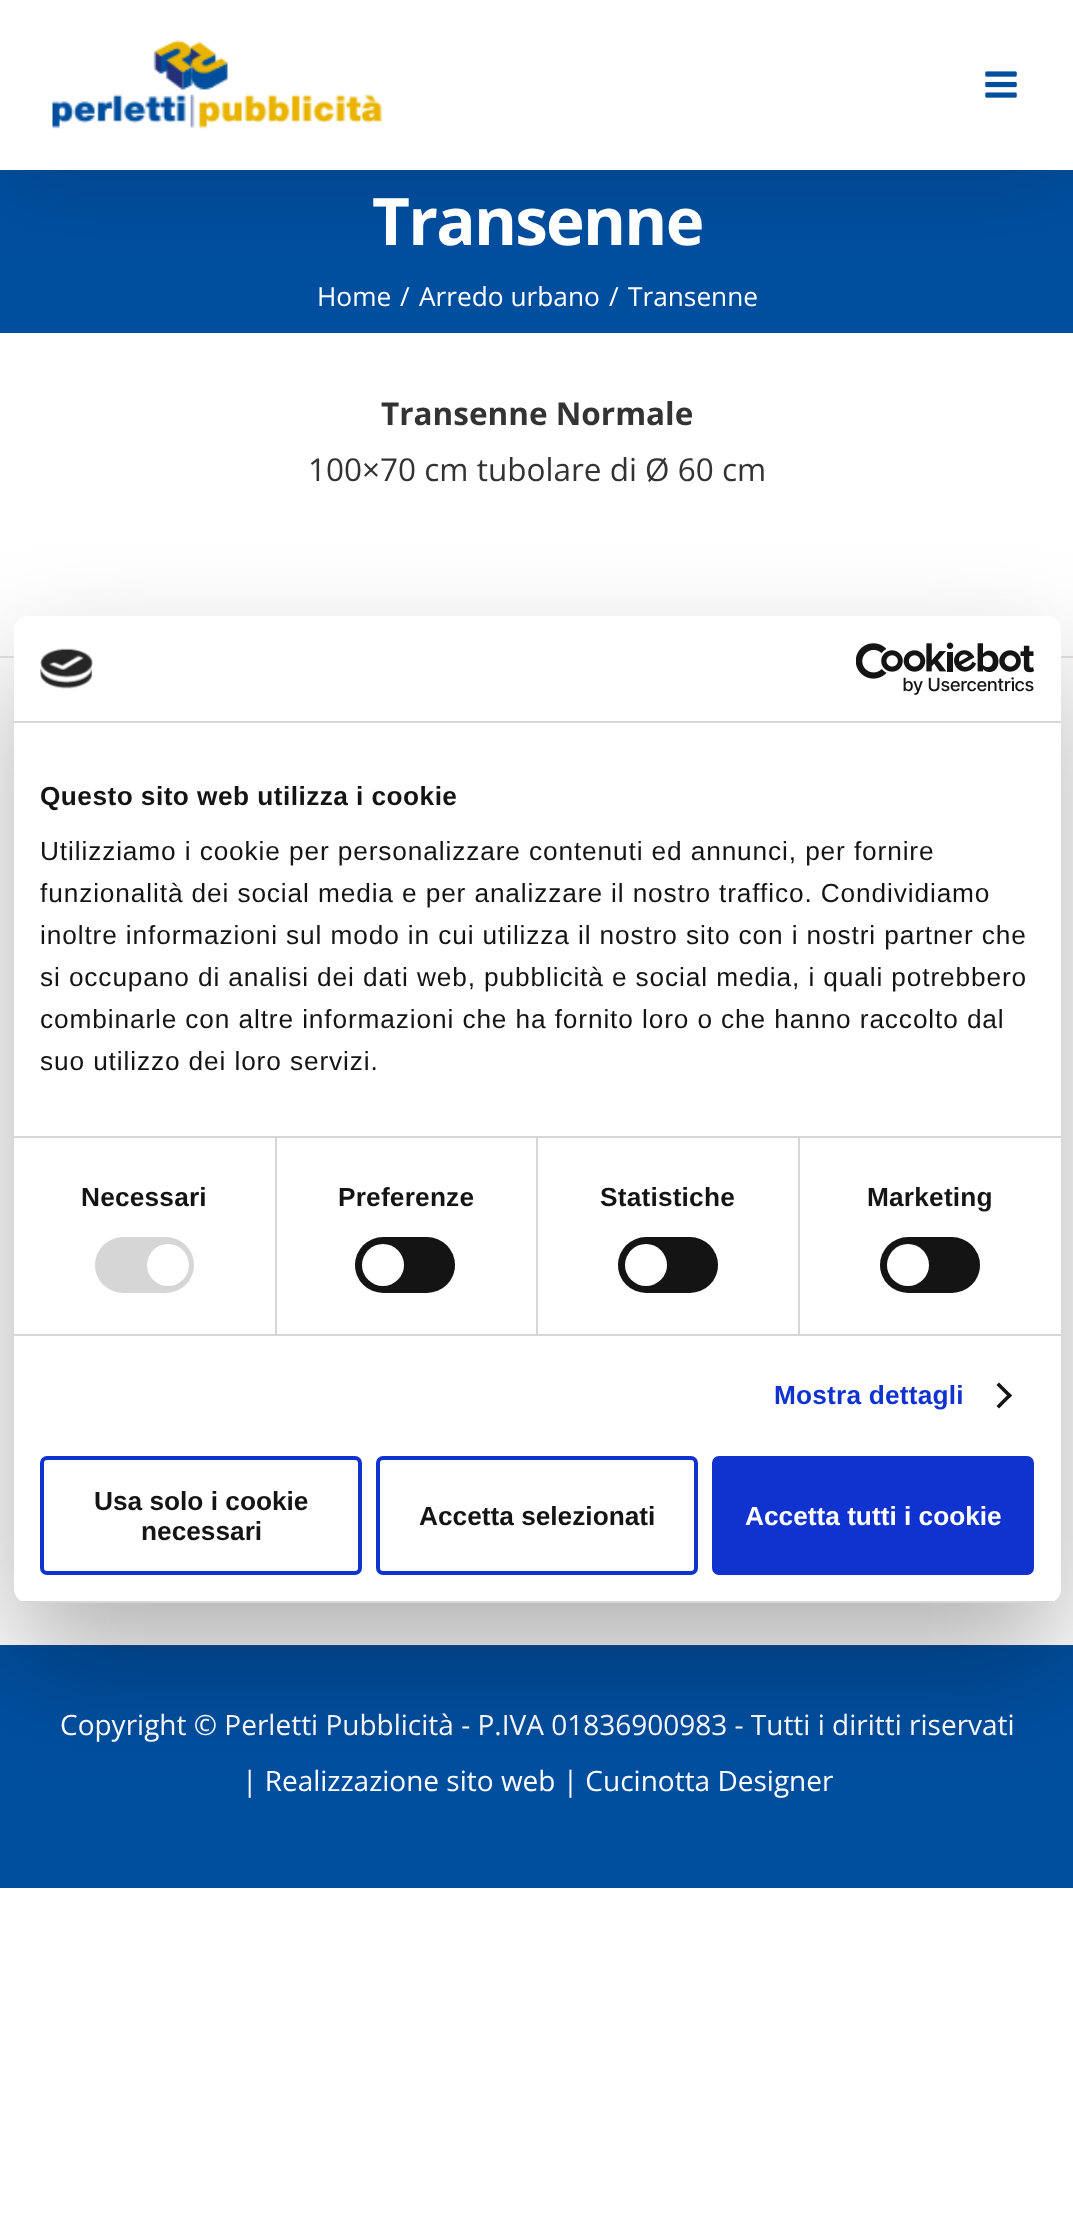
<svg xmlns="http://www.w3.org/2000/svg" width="1073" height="2219">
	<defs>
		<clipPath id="clip1"><rect x="14" y="616" width="1047" height="987" rx="14" /></clipPath>
	</defs>
	<rect width="100%" height="100%" fill="#FFFFFF" />
	<rect x="0" y="170" width="1073" height="163" fill="#004F9F" />
	<rect x="4" y="21" width="1067" height="163" fill="#000000" fill-opacity="0.14" filter="blur(44px)" />
	<rect x="0" y="0" width="1073" height="170" fill="#FFFFFF" />
	<image x="52" y="40" width="330" height="89" href="assets/img1.png" />
	<image x="985" y="71" width="32" height="27" href="assets/img2.png" />
	<text x="372" y="245" font-family="Open Sans" font-size="65.5" font-weight="700" letter-spacing="-1.75" fill="#FFFFFF">Transenne</text>
	<g font-family="Open Sans" font-size="26.25" fill="#FFFFFF">
		<text x="317" y="306">Home</text>
		<text x="400" y="306">/</text>
		<text x="419" y="306">Arredo urbano</text>
		<text x="609" y="306">/</text>
		<text x="628" y="306">Transenne</text>
	</g>
	<text x="381" y="425" font-family="Open Sans" font-size="31.5" font-weight="700" fill="#333333">Transenne Normale</text>
	<text x="308" y="481" font-family="Open Sans" font-size="31.5" fill="#333333">100×70 cm tubolare di Ø 60 cm</text>
	<rect x="0" y="656" width="1073" height="2" fill="#E7E4E2" />
	<rect x="0" y="1645" width="1073" height="243" fill="#004F9F" />
	<g font-family="Open Sans" font-size="28" fill="#FFFFFF">
		<text x="60" y="1735">Copyright © Perletti Pubblicità - P.IVA 01836900983 - Tutti i diritti riservati</text>
		<text x="242" y="1791">| Realizzazione sito web | Cucinotta Designer</text>
	</g>
	<rect x="14" y="672" width="1047" height="987" rx="14" fill="#000000" fill-opacity="0.3" filter="blur(59.5px)" />
	<rect x="14" y="616" width="1047" height="987" rx="14" fill="#FFFFFF" />
	<rect x="14" y="721" width="1047" height="2" fill="#D6D6D6" />
	<image x="40" y="648" width="53" height="41" href="assets/img3.png" />
	<image x="856" y="642" width="178" height="53" href="assets/img4.png" />
	<rect x="14" y="1136" width="1047" height="2" fill="#D6D6D6" />
	<text x="40" y="805" font-family="Liberation Sans" font-size="26.25" font-weight="700" letter-spacing="0.45" fill="#141414">Questo sito web utilizza i cookie</text>
	<g font-family="Liberation Sans" font-size="26.25" letter-spacing="0.88" fill="#141414">
		<text x="40" y="860">Utilizziamo i cookie per personalizzare contenuti ed annunci, per fornire</text>
		<text x="40" y="902">funzionalità dei social media e per analizzare il nostro traffico. Condividiamo</text>
		<text x="40" y="944">inoltre informazioni sul modo in cui utilizza il nostro sito con i nostri partner che</text>
		<text x="40" y="986">si occupano di analisi dei dati web, pubblicità e social media, i quali potrebbero</text>
		<text x="40" y="1028">combinarle con altre informazioni che ha fornito loro o che hanno raccolto dal</text>
		<text x="40" y="1070">suo utilizzo dei loro servizi.</text>
	</g>
	<rect x="14" y="1334" width="1047" height="2" fill="#D6D6D6" />
	<rect x="275" y="1138" width="2" height="196" fill="#D6D6D6" />
	<text x="81" y="1206" font-family="Liberation Sans" font-size="26.25" font-weight="700" letter-spacing="0.2" fill="#141414">Necessari</text>
	<rect x="95" y="1237" width="99" height="56" rx="28" fill="#D6D6D6" />
	<circle cx="168" cy="1265" r="21" fill="#FFFFFF" />
	<rect x="536" y="1138" width="2" height="196" fill="#D6D6D6" />
	<text x="338" y="1206" font-family="Liberation Sans" font-size="26.25" font-weight="700" letter-spacing="0.2" fill="#141414">Preferenze</text>
	<rect x="355" y="1237" width="100" height="56" rx="28" fill="#141414" />
	<circle cx="383" cy="1265" r="21" fill="#FFFFFF" />
	<rect x="798" y="1138" width="2" height="196" fill="#D6D6D6" />
	<text x="600" y="1206" font-family="Liberation Sans" font-size="26.25" font-weight="700" letter-spacing="0.2" fill="#141414">Statistiche</text>
	<rect x="618" y="1237" width="100" height="56" rx="28" fill="#141414" />
	<circle cx="646" cy="1265" r="21" fill="#FFFFFF" />
	<text x="867" y="1206" font-family="Liberation Sans" font-size="26.25" font-weight="700" letter-spacing="0.2" fill="#141414">Marketing</text>
	<rect x="880" y="1237" width="100" height="56" rx="28" fill="#141414" />
	<circle cx="908" cy="1265" r="21" fill="#FFFFFF" />
	<text x="774" y="1404" font-family="Liberation Sans" font-size="26.25" font-weight="700" letter-spacing="0.2" fill="#1032CF">Mostra dettagli</text>
	<path d="M999 1382.5L1012 1395.5L1009.5 1398L996.5 1385Z" fill="#141414" />
	<path d="M1009.5 1393L1012 1395.5L999 1408.5L996.5 1406Z" fill="#141414" />
	<g clip-path="url(#clip1)">
		<rect x="14" y="1601" width="1047" height="2" fill="#D6D6D6" />
	</g>
	<rect x="42" y="1458" width="318" height="115" rx="5" fill="none" stroke="#1032CF" stroke-width="4" />
	<g font-family="Liberation Sans" font-size="26.25" font-weight="700" fill="#141414">
		<text x="94" y="1510">Usa solo i cookie</text>
		<text x="141" y="1540">necessari</text>
	</g>
	<rect x="378" y="1458" width="318" height="115" rx="5" fill="none" stroke="#1032CF" stroke-width="4" />
	<text x="419" y="1525" font-family="Liberation Sans" font-size="26.25" font-weight="700" fill="#141414">Accetta selezionati</text>
	<rect x="714" y="1458" width="318" height="115" rx="5" fill="#1032CF" stroke="#1032CF" stroke-width="4" />
	<text x="745" y="1525" font-family="Liberation Sans" font-size="26.25" font-weight="700" fill="#FFFFFF">Accetta tutti i cookie</text>
</svg>
